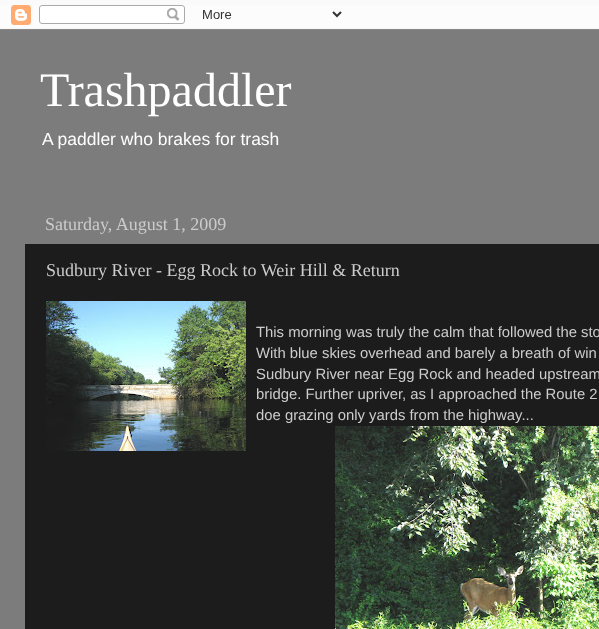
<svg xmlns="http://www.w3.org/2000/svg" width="599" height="629">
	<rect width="100%" height="100%" fill="#FAFAFA" />
	<rect x="0" y="30" width="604" height="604" fill="#000000" fill-opacity="0.15" filter="blur(1.5px)" />
	<image x="0" y="5" width="599" height="25" href="assets/img1.png" />
	<rect x="0" y="30" width="599" height="599" fill="#7C7C7C" />
	<text x="40" y="106" font-family="Liberation Serif" font-size="48" fill="#FFFFFF">Trashpaddler</text>
	<text x="42" y="145" font-family="Liberation Sans" font-size="17.5" fill="#FFFFFF">A paddler who brakes for trash</text>
	<text x="45" y="230" font-family="Liberation Serif" font-size="18" fill="#CCCCCC">Saturday, August 1, 2009</text>
	<rect x="25" y="244" width="574" height="385" fill="#1C1C1C" />
	<text x="46" y="276" font-family="Liberation Serif" font-size="18" fill="#CCCCCC">Sudbury River - Egg Rock to Weir Hill &amp; Return</text>
	<image x="46" y="301" width="200" height="150" href="assets/img2.png" />
	<g font-family="Liberation Sans" font-size="14.85" fill="#CCCCCC">
		<text x="256" y="337">This morning was truly the calm that followed the sto</text>
		<text x="256" y="358">With blue skies overhead and barely a breath of win</text>
		<text x="256" y="379">Sudbury River near Egg Rock and headed upstream</text>
		<text x="256" y="399">bridge. Further upriver, as I approached the Route 2</text>
		<text x="256" y="420">doe grazing only yards from the highway...</text>
	</g>
	<image x="335" y="426" width="264" height="203" href="assets/img3.png" />
</svg>
